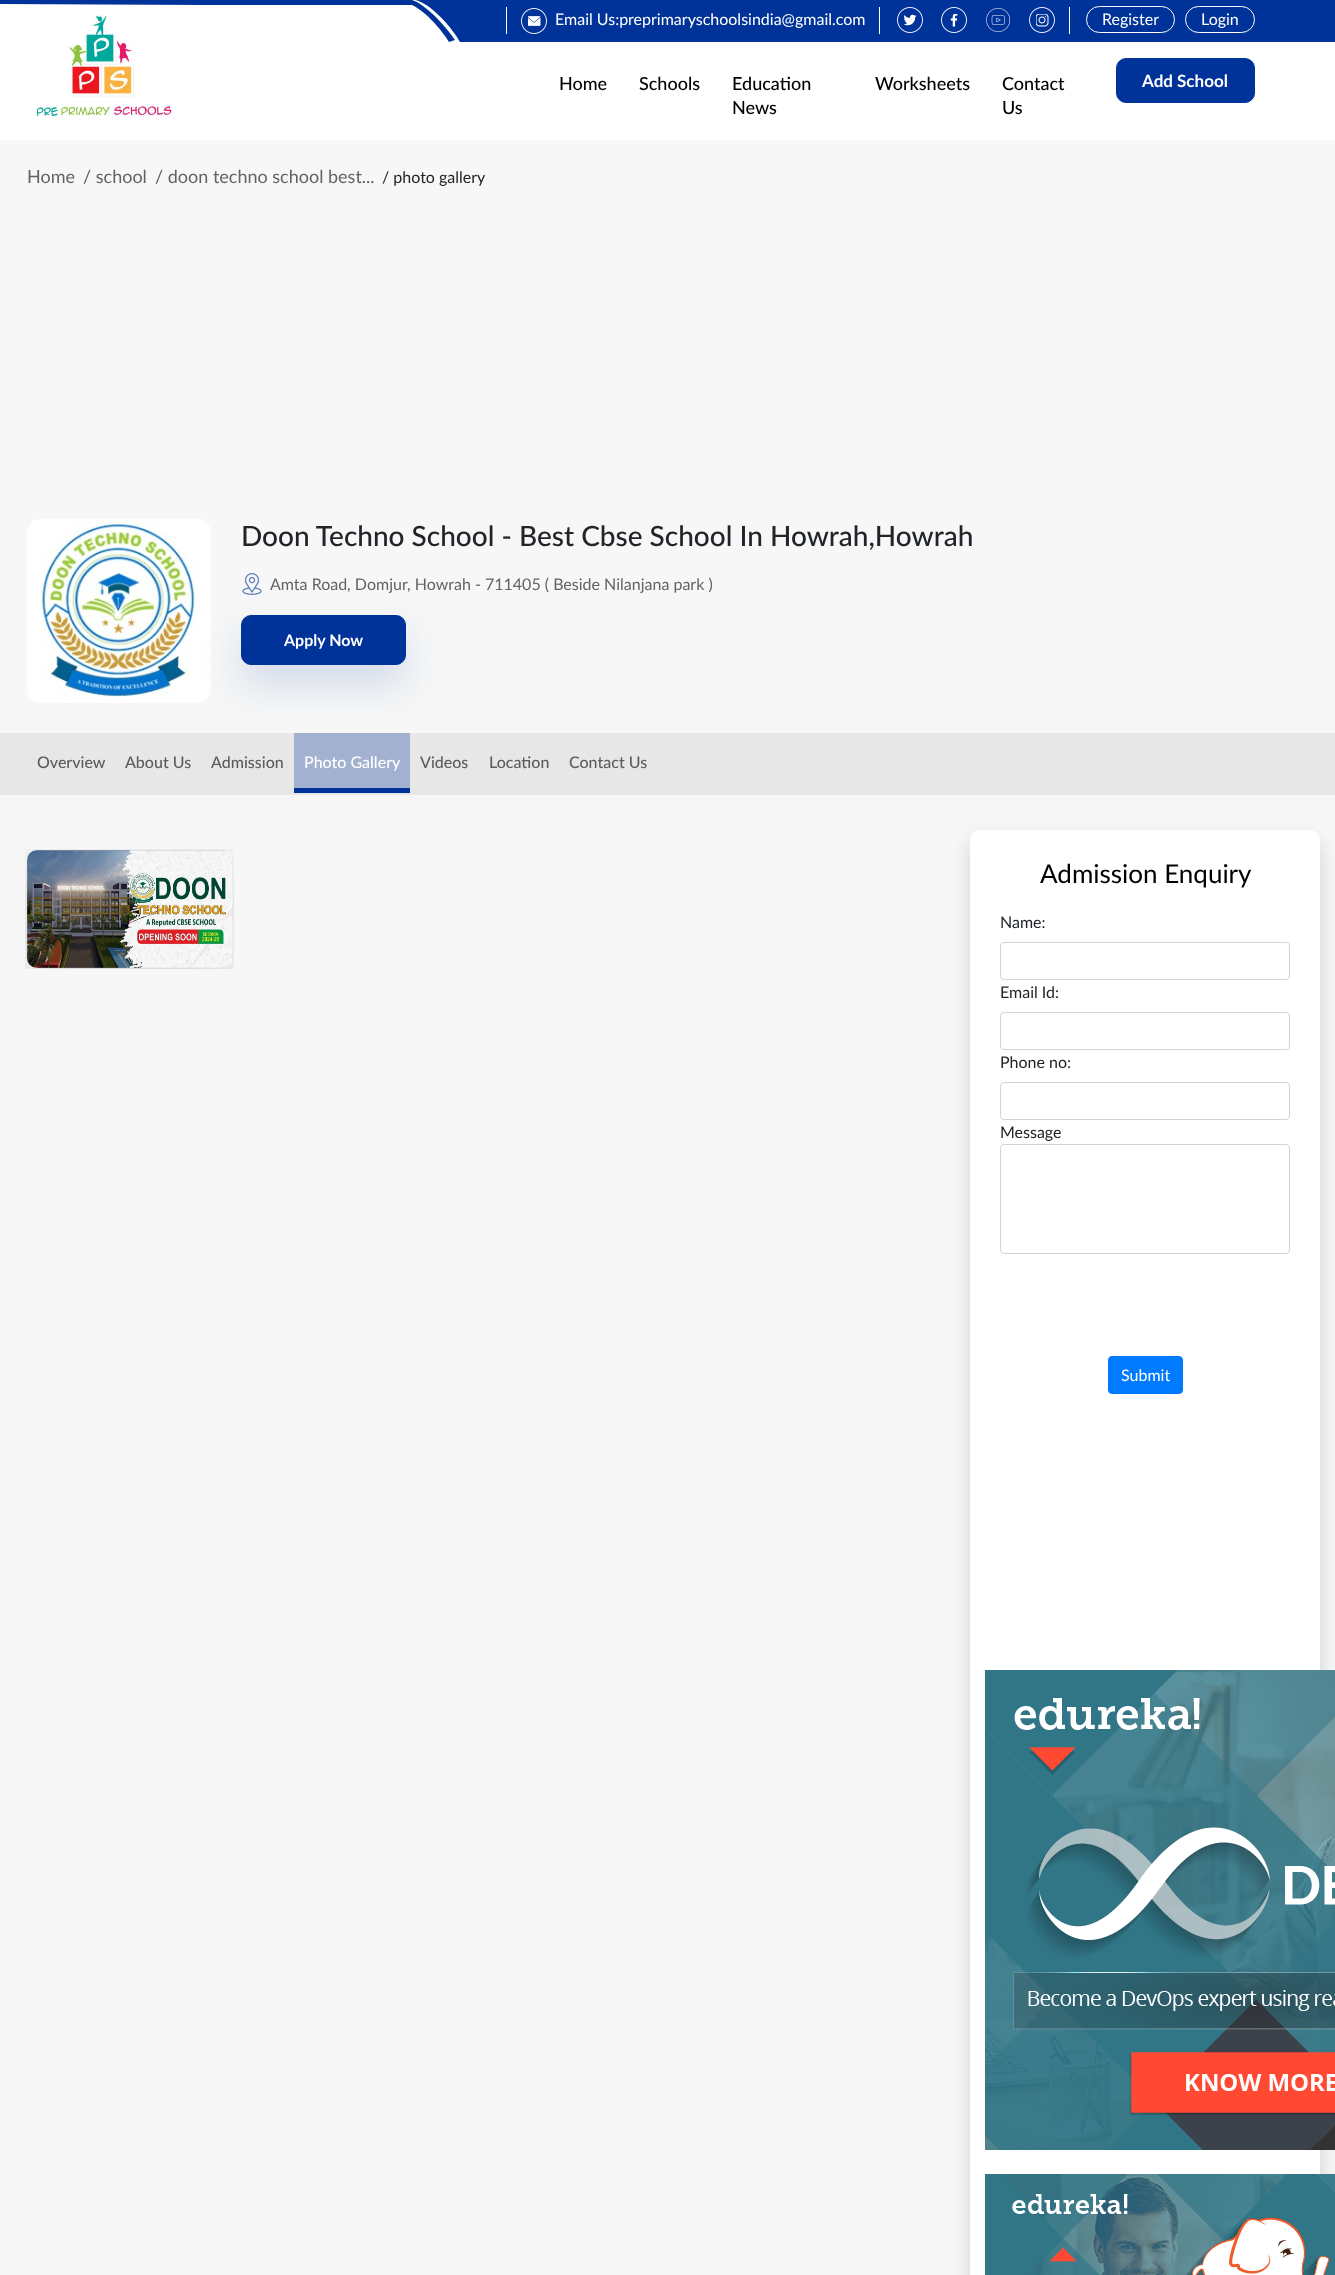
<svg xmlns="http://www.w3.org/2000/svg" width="1335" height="2275">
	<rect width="100%" height="100%" fill="#FFFFFF" />
	<path d="M412 0H0V4L205 5H412C428 13 443 32 449 42L455 40C436 13 419 2 412 0Z" fill="#003399" />
	<path d="M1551 0H415C431 3 453 29 460 42H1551Z" fill="#003399" />
	<rect x="506" y="7" width="1" height="27" fill="#FFFFFF" />
	<image x="521" y="8" width="26" height="26" href="assets/img1.png" />
	<text x="555" y="25" font-family="Lato" font-size="16" fill="#FFFFFF">Email Us:preprimaryschoolsindia@gmail.com</text>
	<rect x="879" y="7" width="1" height="27" fill="#FFFFFF" />
	<image x="897" y="7" width="26" height="26" href="assets/img2.png" />
	<image x="941" y="7" width="26" height="26" href="assets/img3.png" />
	<image x="986" y="8" width="25" height="24" href="assets/img4.png" />
	<image x="1029" y="7" width="26" height="26" href="assets/img5.png" />
	<rect x="1069" y="7" width="1" height="27" fill="#FFFFFF" />
	<rect x="1086.5" y="6.5" width="88" height="26" rx="13" fill="none" stroke="#FFFFFF" />
	<text x="1102" y="25" font-family="Lato" font-size="16" fill="#FFFFFF">Register</text>
	<rect x="1185.5" y="6.5" width="69" height="26" rx="13" fill="none" stroke="#FFFFFF" />
	<text x="1201" y="25" font-family="Lato" font-size="16" fill="#FFFFFF">Login</text>
	<image x="36" y="15" width="138" height="103" href="assets/img6.png" />
	<g font-family="Lato" font-size="18" font-weight="500" fill="#000000">
		<text x="559" y="90">Home</text>
		<text x="639" y="90">Schools</text>
		<text x="732" y="90">Education</text>
		<text x="732" y="114">News</text>
		<text x="875" y="90">Worksheets</text>
		<text x="1002" y="90">Contact</text>
		<text x="1002" y="114">Us</text>
	</g>
	<rect x="1116.5" y="58.5" width="138" height="44" rx="9.5" fill="#003399" stroke="#003399" />
	<text x="1142" y="87" font-family="Lato" font-size="17" font-weight="700" fill="#FFFFFF">Add School</text>
	<rect x="0" y="140" width="1335" height="2135" fill="#F7F7F7" />
	<g font-family="Lato" font-size="18" fill="#636363">
		<text x="27" y="183">Home</text>
		<text x="83" y="183">/ school</text>
		<text x="155" y="183">/ doon techno school best...</text>
	</g>
	<text x="382" y="183" font-family="Lato" font-size="16" fill="#212529">/ photo gallery</text>
	<image x="27" y="519" width="184" height="184" href="assets/img7.png" />
	<text x="241" y="546" font-family="Lato" font-size="28" font-weight="500" fill="#212529">Doon Techno School - Best Cbse School In Howrah,Howrah</text>
	<image x="242" y="573" width="20" height="22" href="assets/img8.png" />
	<text x="270" y="590" font-family="Lato" font-size="16" fill="#636363">Amta Road, Domjur, Howrah - 711405 ( Beside Nilanjana park )</text>
	<rect x="0" y="733" width="1335" height="62" fill="#E7E7E7" />
	<rect x="241" y="635" width="165" height="50" rx="10" fill="#003399" fill-opacity="0.15" filter="blur(20px)" />
	<rect x="241.5" y="615.5" width="164" height="49" rx="9.5" fill="#003399" stroke="#003399" />
	<text x="284" y="646" font-family="Lato" font-size="16" font-weight="700" fill="#FFFFFF">Apply Now</text>
	<g font-family="Lato" font-size="16" font-weight="500" fill="#5C5C5C">
		<text x="37" y="768">Overview</text>
		<text x="125" y="768">About Us</text>
		<text x="211" y="768">Admission</text>
	</g>
	<rect x="294" y="733" width="116" height="55" fill="#A2B1D0" />
	<rect x="294" y="788" width="116" height="5" fill="#003399" />
	<text x="304" y="768" font-family="Lato" font-size="16" font-weight="500" fill="#FFFFFF">Photo Gallery</text>
	<g font-family="Lato" font-size="16" font-weight="500" fill="#5C5C5C">
		<text x="420" y="768">Videos</text>
		<text x="489" y="768">Location</text>
		<text x="569" y="768">Contact Us</text>
	</g>
	<image x="25" y="849" width="209" height="120" href="assets/img9.png" />
	<rect x="970" y="840" width="350" height="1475" rx="10" fill="#000000" fill-opacity="0.15" filter="blur(10px)" />
	<rect x="970" y="830" width="350" height="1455" rx="10" fill="#FFFFFF" />
	<text x="1040" y="883" font-family="Lato" font-size="26" fill="#000000">Admission Enquiry</text>
	<text x="1000" y="928" font-family="Lato" font-size="16" fill="#212529">Name:</text>
	<rect x="1000.5" y="942.5" width="289" height="37" rx="3.5" fill="none" stroke="#CED4DA" />
	<text x="1000" y="998" font-family="Lato" font-size="16" fill="#212529">Email Id:</text>
	<rect x="1000.5" y="1012.5" width="289" height="37" rx="3.5" fill="none" stroke="#CED4DA" />
	<text x="1000" y="1068" font-family="Lato" font-size="16" fill="#212529">Phone no:</text>
	<rect x="1000.5" y="1082.5" width="289" height="37" rx="3.5" fill="none" stroke="#CED4DA" />
	<text x="1000" y="1138" font-family="Lato" font-size="16" fill="#212529">Message</text>
	<rect x="1000.5" y="1144.5" width="289" height="109" rx="3.5" fill="none" stroke="#CED4DA" />
	<rect x="1108.5" y="1356.5" width="74" height="37" rx="3.5" fill="#007BFF" stroke="#007BFF" />
	<text x="1121" y="1381" font-family="Lato" font-size="16" fill="#FFFFFF">Submit</text>
	<image x="985" y="1670" width="350" height="480" href="assets/img10.png" />
	<image x="985" y="2174" width="350" height="101" href="assets/img11.png" />
</svg>
